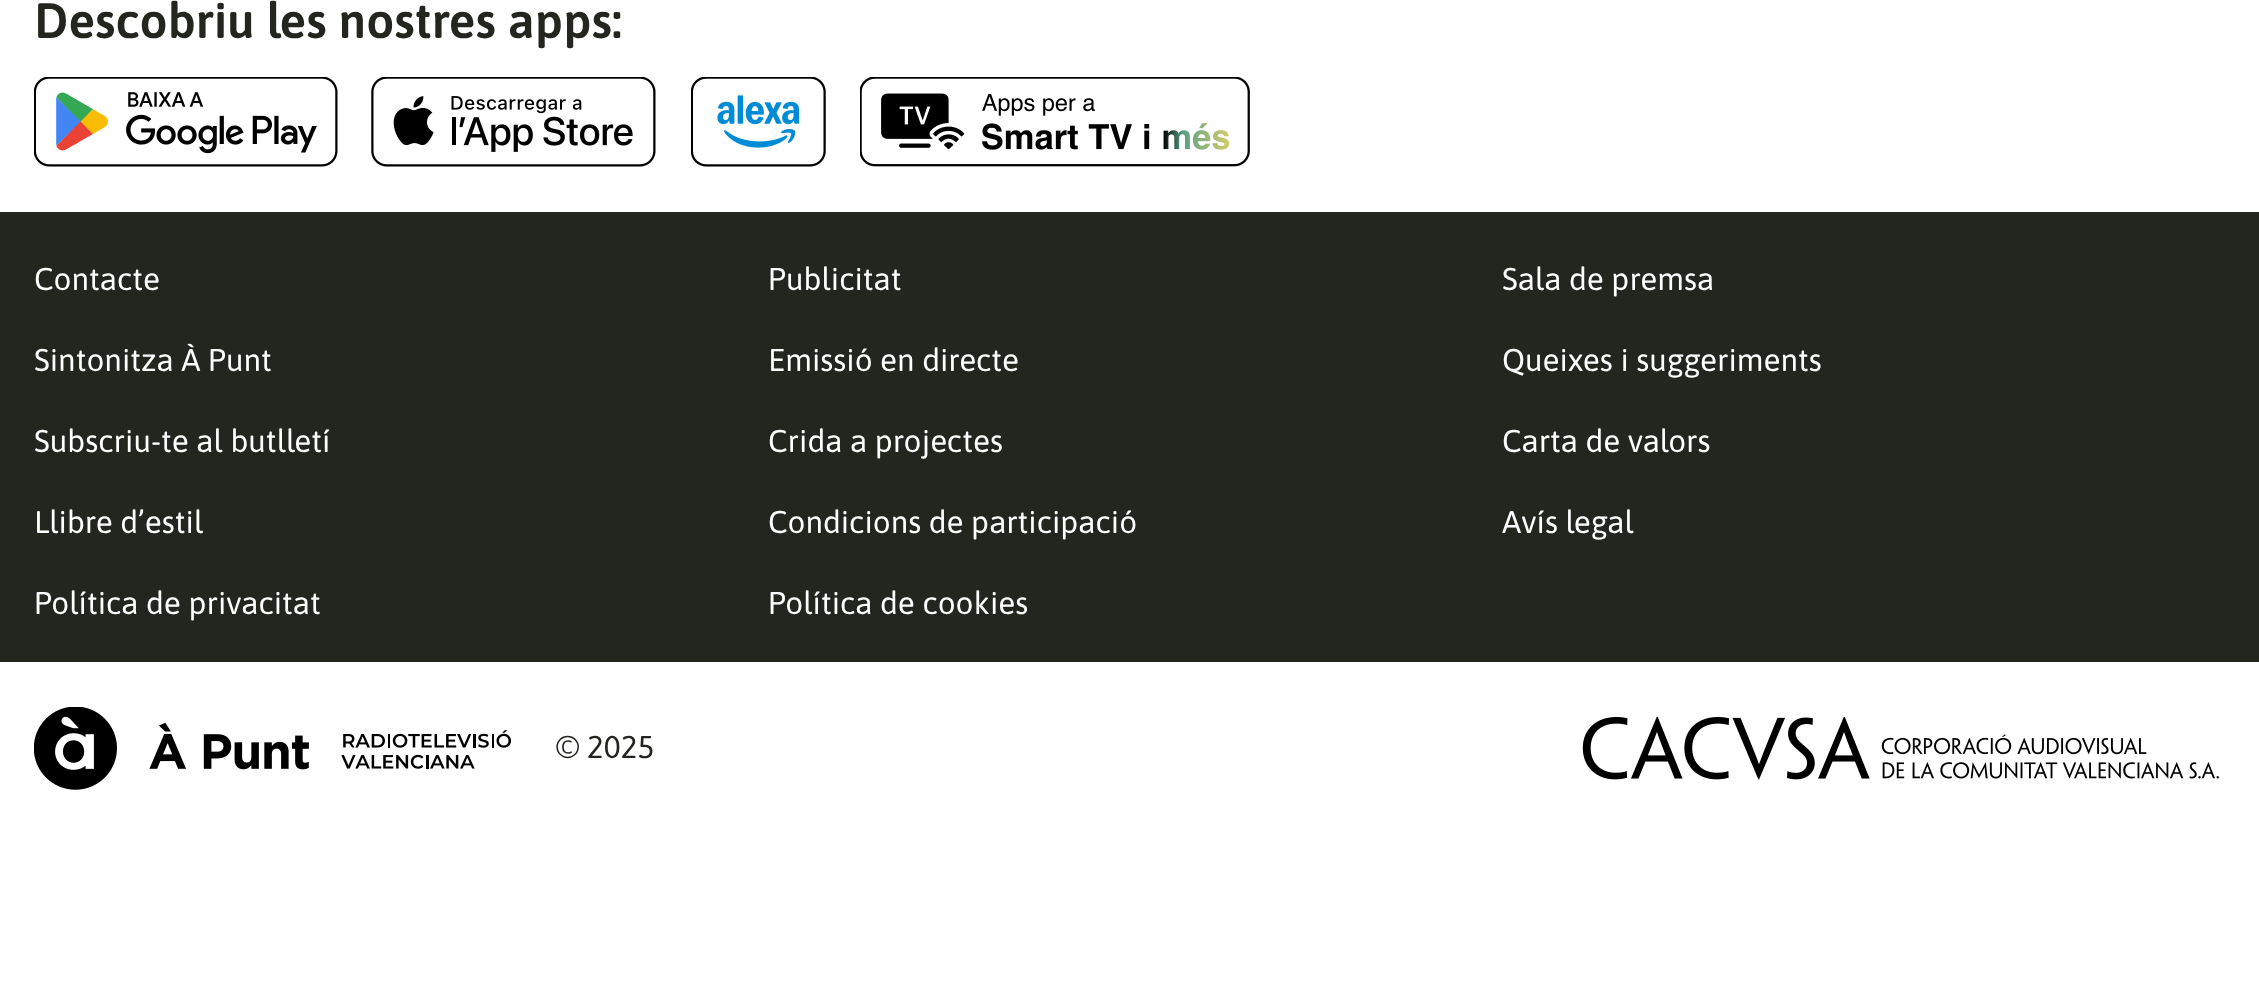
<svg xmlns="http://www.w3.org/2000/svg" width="2259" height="987">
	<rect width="100%" height="100%" fill="#FFFFFF" />
	<text x="34" y="38" font-family="Asap" font-size="49.5" font-weight="600" fill="#23251F">Descobriu les nostres apps:</text>
	<image x="34" y="77" width="304" height="90" href="assets/img1.png" />
	<image x="371" y="77" width="285" height="90" href="assets/img2.png" />
	<image x="691" y="77" width="135" height="90" href="assets/img3.png" />
	<image x="860" y="77" width="390" height="90" href="assets/img4.png" />
	<rect x="0" y="212" width="2259" height="450" fill="#23251F" />
	<g font-family="Asap" font-size="31.5" fill="#FFFFFF">
		<text x="34" y="290">Contacte</text>
		<text x="768" y="290">Publicitat</text>
		<text x="1502" y="290">Sala de premsa</text>
		<text x="34" y="371">Sintonitza À Punt</text>
		<text x="768" y="371">Emissió en directe</text>
		<text x="1502" y="371">Queixes i suggeriments</text>
		<text x="34" y="452">Subscriu-te al butlletí</text>
		<text x="768" y="452">Crida a projectes</text>
		<text x="1502" y="452">Carta de valors</text>
		<text x="34" y="533">Llibre d’estil</text>
		<text x="768" y="533">Condicions de participació</text>
		<text x="1502" y="533">Avís legal</text>
		<text x="34" y="614">Política de privacitat</text>
		<text x="768" y="614">Política de cookies</text>
	</g>
	<image x="34" y="707" width="477" height="83" href="assets/img5.png" />
	<text x="556" y="758" font-family="Asap" font-size="31.5" fill="#23251F">© 2025</text>
	<image x="1582" y="716" width="637" height="64" href="assets/img6.png" />
</svg>
